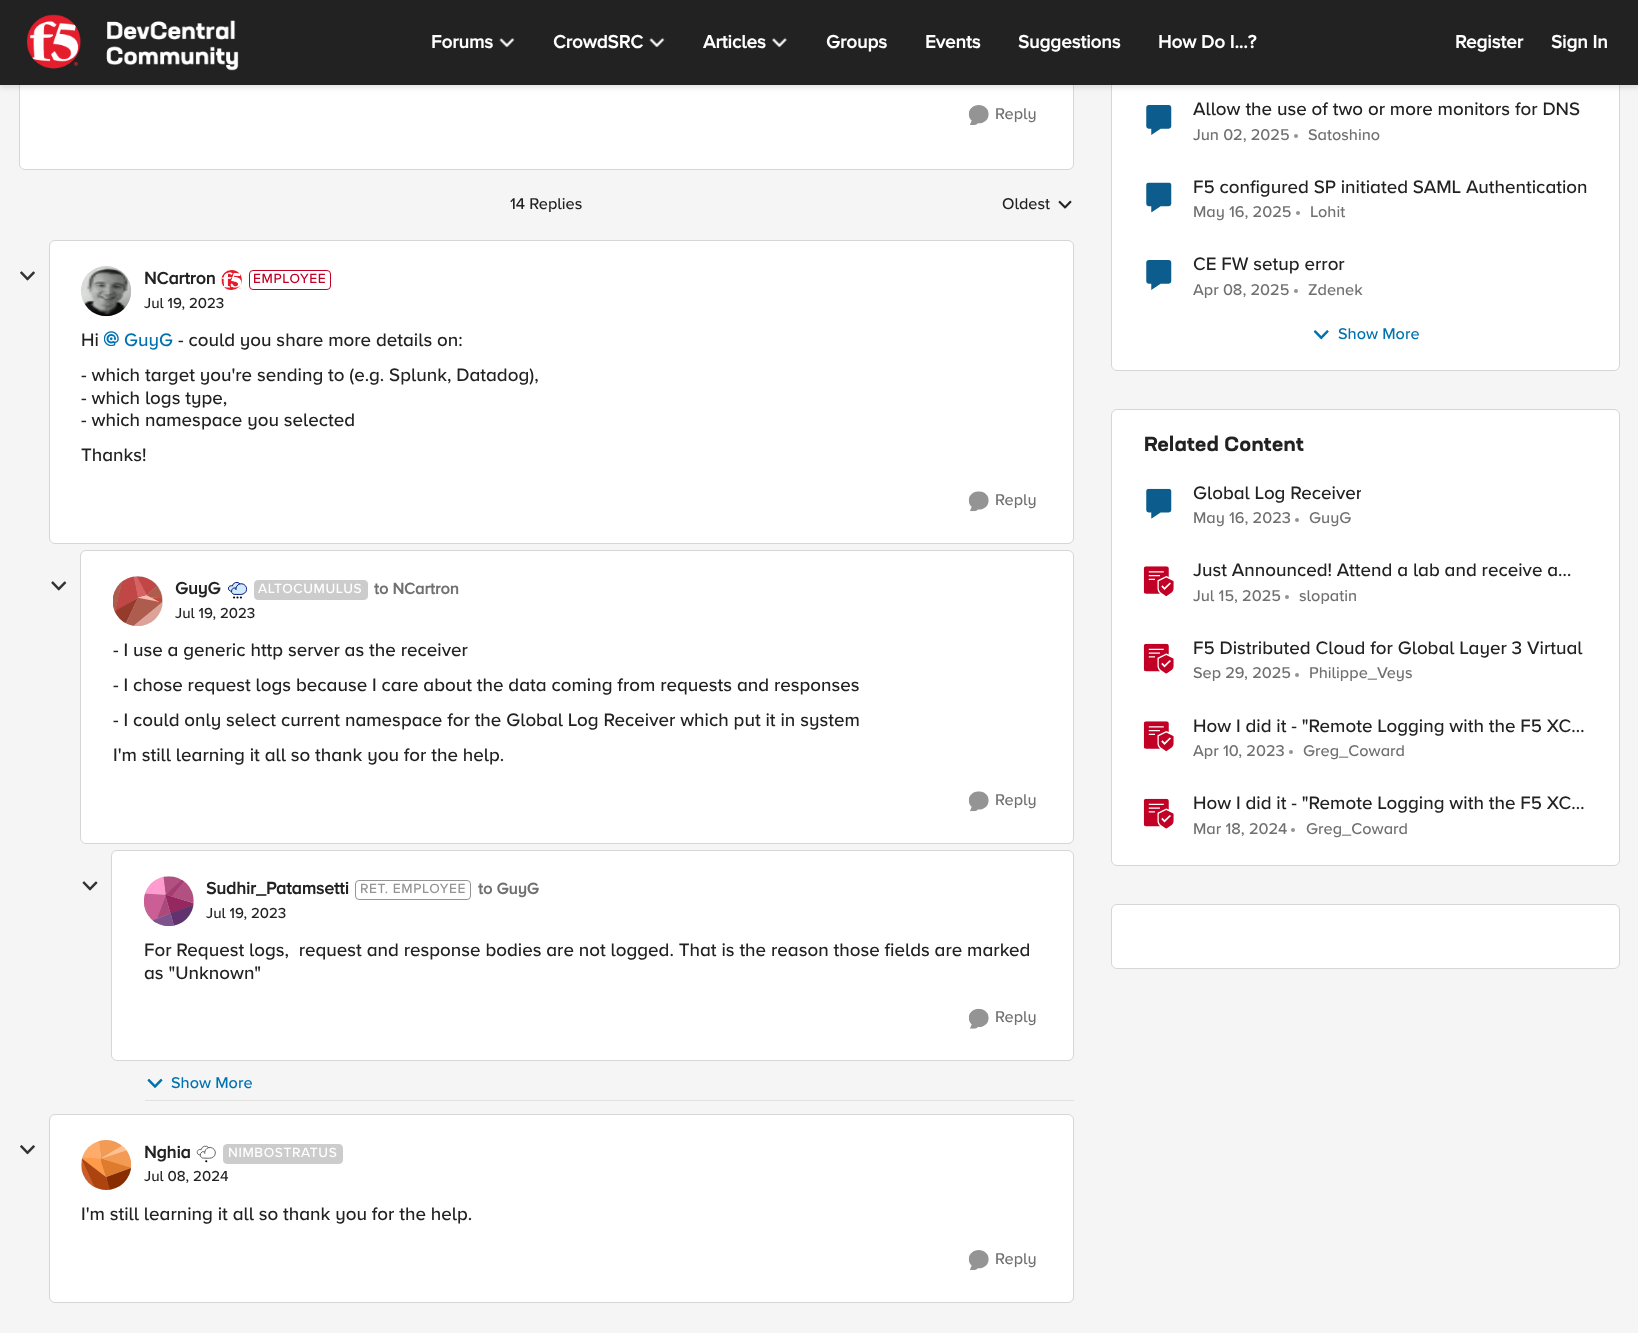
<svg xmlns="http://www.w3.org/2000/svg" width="1638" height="1333">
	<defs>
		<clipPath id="clip1"><rect x="1193" y="483" width="168" height="21" /></clipPath>
	</defs>
	<rect width="100%" height="100%" fill="#F5F5F5" />
	<rect x="19.5" y="-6.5" width="1054" height="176" rx="5.5" fill="#FFFFFF" stroke="#D6D6D6" />
	<rect x="1111.5" y="-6.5" width="508" height="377" rx="5.5" fill="#FFFFFF" stroke="#D6D6D6" />
	<rect x="0" y="3" width="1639" height="85" fill="#333333" fill-opacity="0.12" filter="blur(2.5px)" />
	<rect x="0" y="0" width="1638" height="85" fill="#222222" />
	<image x="27" y="14" width="212" height="57" href="assets/img1.png" />
	<text x="431" y="48" font-family="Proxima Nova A" font-size="18.75" font-weight="700" fill="#FFFFFF">Forums</text>
	<image x="499" y="37" width="16" height="11" href="assets/img2.png" />
	<text x="553" y="48" font-family="Proxima Nova A" font-size="18.75" font-weight="700" fill="#FFFFFF">CrowdSRC</text>
	<image x="649" y="37" width="16" height="11" href="assets/img2.png" />
	<text x="703" y="48" font-family="Proxima Nova A" font-size="18.75" font-weight="700" fill="#FFFFFF">Articles</text>
	<image x="772" y="37" width="15" height="11" href="assets/img3.png" />
	<g font-family="Proxima Nova A" font-size="18.75" font-weight="700" fill="#FFFFFF">
		<text x="826" y="48">Groups</text>
		<text x="925" y="48">Events</text>
		<text x="1018" y="48">Suggestions</text>
		<text x="1158" y="48">How Do I...?</text>
		<text x="1455" y="48">Register</text>
		<text x="1551" y="48">Sign In</text>
	</g>
	<image x="968" y="105" width="21" height="20" href="assets/img4.png" />
	<text x="995" y="119" font-family="Proxima Nova A" font-size="16.25" font-weight="500" fill="#707070">Reply</text>
	<g font-family="Proxima Nova A" font-size="16.25" font-weight="500" fill="#222222">
		<text x="510" y="209">14 Replies</text>
		<text x="1002" y="209">Oldest</text>
	</g>
	<image x="1058" y="200" width="14" height="9" href="assets/img5.png" />
	<image x="20" y="271" width="15" height="10" href="assets/img6.png" />
	<rect x="49.5" y="240.5" width="1024" height="303" rx="5.5" fill="#FFFFFF" stroke="#D6D6D6" />
	<circle cx="106" cy="291" r="25" fill="#D9D9D9" />
	<image x="81" y="266" width="51" height="51" href="assets/img7.png" />
	<text x="144" y="284" font-family="Proxima Nova A" font-size="17.5" font-weight="700" fill="#222222">NCartron</text>
	<image x="221" y="270" width="21" height="20" href="assets/img8.png" />
	<rect x="249.5" y="270.5" width="81" height="19" rx="3.5" fill="none" stroke="#C20025" />
	<text x="253" y="283" font-family="Proxima Nova A" font-size="13.75" font-weight="500" letter-spacing="0.6" fill="#C20025">EMPLOYEE</text>
	<text x="144" y="308" font-family="Proxima Nova A" font-size="15" font-weight="500" fill="#222222">Jul 19, 2023</text>
	<text x="81" y="346" font-family="Proxima Nova A" font-size="18.75" font-weight="500" fill="#222222">Hi</text>
	<image x="104" y="331" width="15" height="15" href="assets/img9.png" />
	<text x="124" y="346" font-family="Proxima Nova A" font-size="18.75" font-weight="500" fill="#0072B0">GuyG</text>
	<g font-family="Proxima Nova A" font-size="18.75" font-weight="500" fill="#222222">
		<text x="178" y="346">- could you share more details on:</text>
		<text x="81" y="381">- which target you're sending to (e.g. Splunk, Datadog),</text>
		<text x="81" y="404">- which logs type,</text>
		<text x="81" y="426">- which namespace you selected</text>
		<text x="81" y="461">Thanks!</text>
	</g>
	<image x="968" y="491" width="21" height="21" href="assets/img10.png" />
	<text x="995" y="505" font-family="Proxima Nova A" font-size="16.25" font-weight="500" fill="#707070">Reply</text>
	<image x="51" y="581" width="16" height="10" href="assets/img11.png" />
	<rect x="80.5" y="550.5" width="993" height="293" rx="5.5" fill="#FFFFFF" stroke="#D6D6D6" />
	<circle cx="138" cy="601" r="25" fill="#D9D9D9" />
	<image x="113" y="576" width="50" height="50" href="assets/img12.png" />
	<text x="175" y="594" font-family="Proxima Nova A" font-size="17.5" font-weight="700" fill="#222222">GuyG</text>
	<image x="228" y="582" width="20" height="17" href="assets/img13.png" />
	<rect x="254.5" y="580.5" width="113" height="19" rx="3.5" fill="#CCCCCC" stroke="#CCCCCC" />
	<text x="258" y="593" font-family="Proxima Nova A" font-size="13.75" font-weight="500" letter-spacing="0.6" fill="#FFFFFF">ALTOCUMULUS</text>
	<text x="374" y="594" font-family="Proxima Nova A" font-size="16.25" font-weight="700" fill="#707070">to NCartron</text>
	<text x="175" y="618" font-family="Proxima Nova A" font-size="15" font-weight="500" fill="#222222">Jul 19, 2023</text>
	<g font-family="Proxima Nova A" font-size="18.75" font-weight="500" fill="#222222">
		<text x="113" y="656">- I use a generic http server as the receiver</text>
		<text x="113" y="691">- I chose request logs because I care about the data coming from requests and responses</text>
		<text x="113" y="726">- I could only select current namespace for the Global Log Receiver which put it in system</text>
		<text x="113" y="761">I'm still learning it all so thank you for the help.</text>
	</g>
	<image x="968" y="791" width="21" height="21" href="assets/img10.png" />
	<text x="995" y="805" font-family="Proxima Nova A" font-size="16.25" font-weight="500" fill="#707070">Reply</text>
	<image x="82" y="881" width="16" height="10" href="assets/img14.png" />
	<rect x="111.5" y="850.5" width="962" height="210" rx="5.5" fill="#FFFFFF" stroke="#D6D6D6" />
	<circle cx="169" cy="901" r="25" fill="#D9D9D9" />
	<image x="144" y="876" width="50" height="50" href="assets/img15.png" />
	<text x="206" y="894" font-family="Proxima Nova A" font-size="17.5" font-weight="700" fill="#222222">Sudhir_Patamsetti</text>
	<rect x="355.5" y="880.5" width="115" height="19" rx="3.5" fill="none" stroke="#949494" />
	<text x="360" y="893" font-family="Proxima Nova A" font-size="13.75" font-weight="500" letter-spacing="0.6" fill="#949494">RET. EMPLOYEE</text>
	<text x="478" y="894" font-family="Proxima Nova A" font-size="16.25" font-weight="700" fill="#707070">to GuyG</text>
	<text x="206" y="918" font-family="Proxima Nova A" font-size="15" font-weight="500" fill="#222222">Jul 19, 2023</text>
	<g font-family="Proxima Nova A" font-size="18.75" font-weight="500" fill="#222222">
		<text x="144" y="956" xml:space="preserve">For Request logs,  request and response bodies are not logged. That is the reason those fields are marked</text>
		<text x="144" y="979">as "Unknown"</text>
	</g>
	<image x="968" y="1008" width="21" height="21" href="assets/img16.png" />
	<text x="995" y="1022" font-family="Proxima Nova A" font-size="16.25" font-weight="500" fill="#707070">Reply</text>
	<rect x="145" y="1100" width="929" height="1" fill="#E1E1E1" />
	<image x="147" y="1078" width="16" height="10" href="assets/img17.png" />
	<text x="171" y="1088" font-family="Proxima Nova A" font-size="16.25" font-weight="500" fill="#0072B0">Show More</text>
	<image x="20" y="1145" width="15" height="10" href="assets/img18.png" />
	<rect x="49.5" y="1114.5" width="1024" height="188" rx="5.5" fill="#FFFFFF" stroke="#D6D6D6" />
	<circle cx="106" cy="1165" r="25" fill="#D9D9D9" />
	<image x="81" y="1140" width="50" height="50" href="assets/img19.png" />
	<text x="144" y="1158" font-family="Proxima Nova A" font-size="17.5" font-weight="700" fill="#222222">Nghia</text>
	<image x="196" y="1145" width="20" height="18" href="assets/img20.png" />
	<rect x="223.5" y="1144.5" width="119" height="19" rx="3.5" fill="#CCCCCC" stroke="#CCCCCC" />
	<text x="228" y="1157" font-family="Proxima Nova A" font-size="13.75" font-weight="500" letter-spacing="0.6" fill="#FFFFFF">NIMBOSTRATUS</text>
	<text x="144" y="1181" font-family="Proxima Nova A" font-size="15" font-weight="500" fill="#222222">Jul 08, 2024</text>
	<text x="81" y="1220" font-family="Proxima Nova A" font-size="18.75" font-weight="500" fill="#222222">I'm still learning it all so thank you for the help.</text>
	<image x="968" y="1250" width="21" height="20" href="assets/img4.png" />
	<text x="995" y="1264" font-family="Proxima Nova A" font-size="16.25" font-weight="500" fill="#707070">Reply</text>
	<image x="1146" y="105" width="26" height="30" href="assets/img21.png" />
	<text x="1193" y="115" font-family="Proxima Nova A" font-size="18.75" font-weight="500" fill="#222222">Allow the use of two or more monitors for DNS</text>
	<text x="1193" y="140" font-family="Proxima Nova A" font-size="16.25" font-weight="500" fill="#707070">Jun 02, 2025</text>
	<circle cx="1296" cy="136" r="2" fill="#949494" />
	<text x="1308" y="140" font-family="Proxima Nova A" font-size="16.25" font-weight="500" fill="#707070">Satoshino</text>
	<image x="1146" y="182" width="26" height="31" href="assets/img22.png" />
	<text x="1193" y="193" font-family="Proxima Nova A" font-size="18.75" font-weight="500" fill="#222222">F5 configured SP initiated SAML Authentication</text>
	<text x="1193" y="217" font-family="Proxima Nova A" font-size="16.25" font-weight="500" fill="#707070">May 16, 2025</text>
	<circle cx="1298" cy="213" r="2" fill="#949494" />
	<text x="1310" y="217" font-family="Proxima Nova A" font-size="16.25" font-weight="500" fill="#707070">Lohit</text>
	<image x="1146" y="260" width="26" height="30" href="assets/img21.png" />
	<text x="1193" y="270" font-family="Proxima Nova A" font-size="18.75" font-weight="500" fill="#222222">CE FW setup error</text>
	<text x="1193" y="295" font-family="Proxima Nova A" font-size="16.25" font-weight="500" fill="#707070">Apr 08, 2025</text>
	<circle cx="1296" cy="291" r="2" fill="#949494" />
	<text x="1308" y="295" font-family="Proxima Nova A" font-size="16.25" font-weight="500" fill="#707070">Zdenek</text>
	<image x="1313" y="330" width="16" height="10" href="assets/img23.png" />
	<text x="1338" y="339" font-family="Proxima Nova A" font-size="16.25" font-weight="500" fill="#0072B0">Show More</text>
	<rect x="1111.5" y="409.5" width="508" height="456" rx="5.5" fill="#FFFFFF" stroke="#D6D6D6" />
	<text x="1144" y="451" font-family="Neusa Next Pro" font-size="20" font-weight="700" fill="#222222">Related Content</text>
	<image x="1146" y="488" width="26" height="31" href="assets/img24.png" />
	<g clip-path="url(#clip1)">
		<text x="1193" y="499" font-family="Proxima Nova A" font-size="18.75" font-weight="500" fill="#222222">Global Log Receiver</text>
	</g>
	<text x="1193" y="523" font-family="Proxima Nova A" font-size="16.25" font-weight="500" fill="#707070">May 16, 2023</text>
	<circle cx="1297" cy="520" r="2" fill="#949494" />
	<text x="1309" y="523" font-family="Proxima Nova A" font-size="16.25" font-weight="500" fill="#707070">GuyG</text>
	<image x="1143" y="566" width="31" height="31" href="assets/img25.png" />
	<text x="1193" y="576" font-family="Proxima Nova A" font-size="18.75" font-weight="500" fill="#222222">Just Announced! Attend a lab and receive a…</text>
	<text x="1193" y="601" font-family="Proxima Nova A" font-size="16.25" font-weight="500" fill="#707070">Jul 15, 2025</text>
	<circle cx="1287" cy="597" r="2" fill="#949494" />
	<text x="1299" y="601" font-family="Proxima Nova A" font-size="16.25" font-weight="500" fill="#707070">slopatin</text>
	<image x="1143" y="643" width="31" height="31" href="assets/img26.png" />
	<text x="1193" y="654" font-family="Proxima Nova A" font-size="18.75" font-weight="500" fill="#222222">F5 Distributed Cloud for Global Layer 3 Virtual</text>
	<text x="1193" y="678" font-family="Proxima Nova A" font-size="16.25" font-weight="500" fill="#707070">Sep 29, 2025</text>
	<circle cx="1297" cy="675" r="2" fill="#949494" />
	<text x="1309" y="678" font-family="Proxima Nova A" font-size="16.25" font-weight="500" fill="#707070">Philippe_Veys</text>
	<image x="1143" y="721" width="31" height="31" href="assets/img25.png" />
	<text x="1193" y="732" font-family="Proxima Nova A" font-size="18.75" font-weight="500" fill="#222222">How I did it - "Remote Logging with the F5 XC…</text>
	<text x="1193" y="756" font-family="Proxima Nova A" font-size="16.25" font-weight="500" fill="#707070">Apr 10, 2023</text>
	<circle cx="1291" cy="752" r="2" fill="#949494" />
	<text x="1303" y="756" font-family="Proxima Nova A" font-size="16.25" font-weight="500" fill="#707070">Greg_Coward</text>
	<image x="1143" y="798" width="31" height="31" href="assets/img26.png" />
	<text x="1193" y="809" font-family="Proxima Nova A" font-size="18.75" font-weight="500" fill="#222222">How I did it - "Remote Logging with the F5 XC…</text>
	<text x="1193" y="834" font-family="Proxima Nova A" font-size="16.25" font-weight="500" fill="#707070">Mar 18, 2024</text>
	<circle cx="1293" cy="830" r="2" fill="#949494" />
	<text x="1306" y="834" font-family="Proxima Nova A" font-size="16.25" font-weight="500" fill="#707070">Greg_Coward</text>
	<rect x="1111.5" y="904.5" width="508" height="64" rx="5.5" fill="#FFFFFF" stroke="#D6D6D6" />
</svg>
